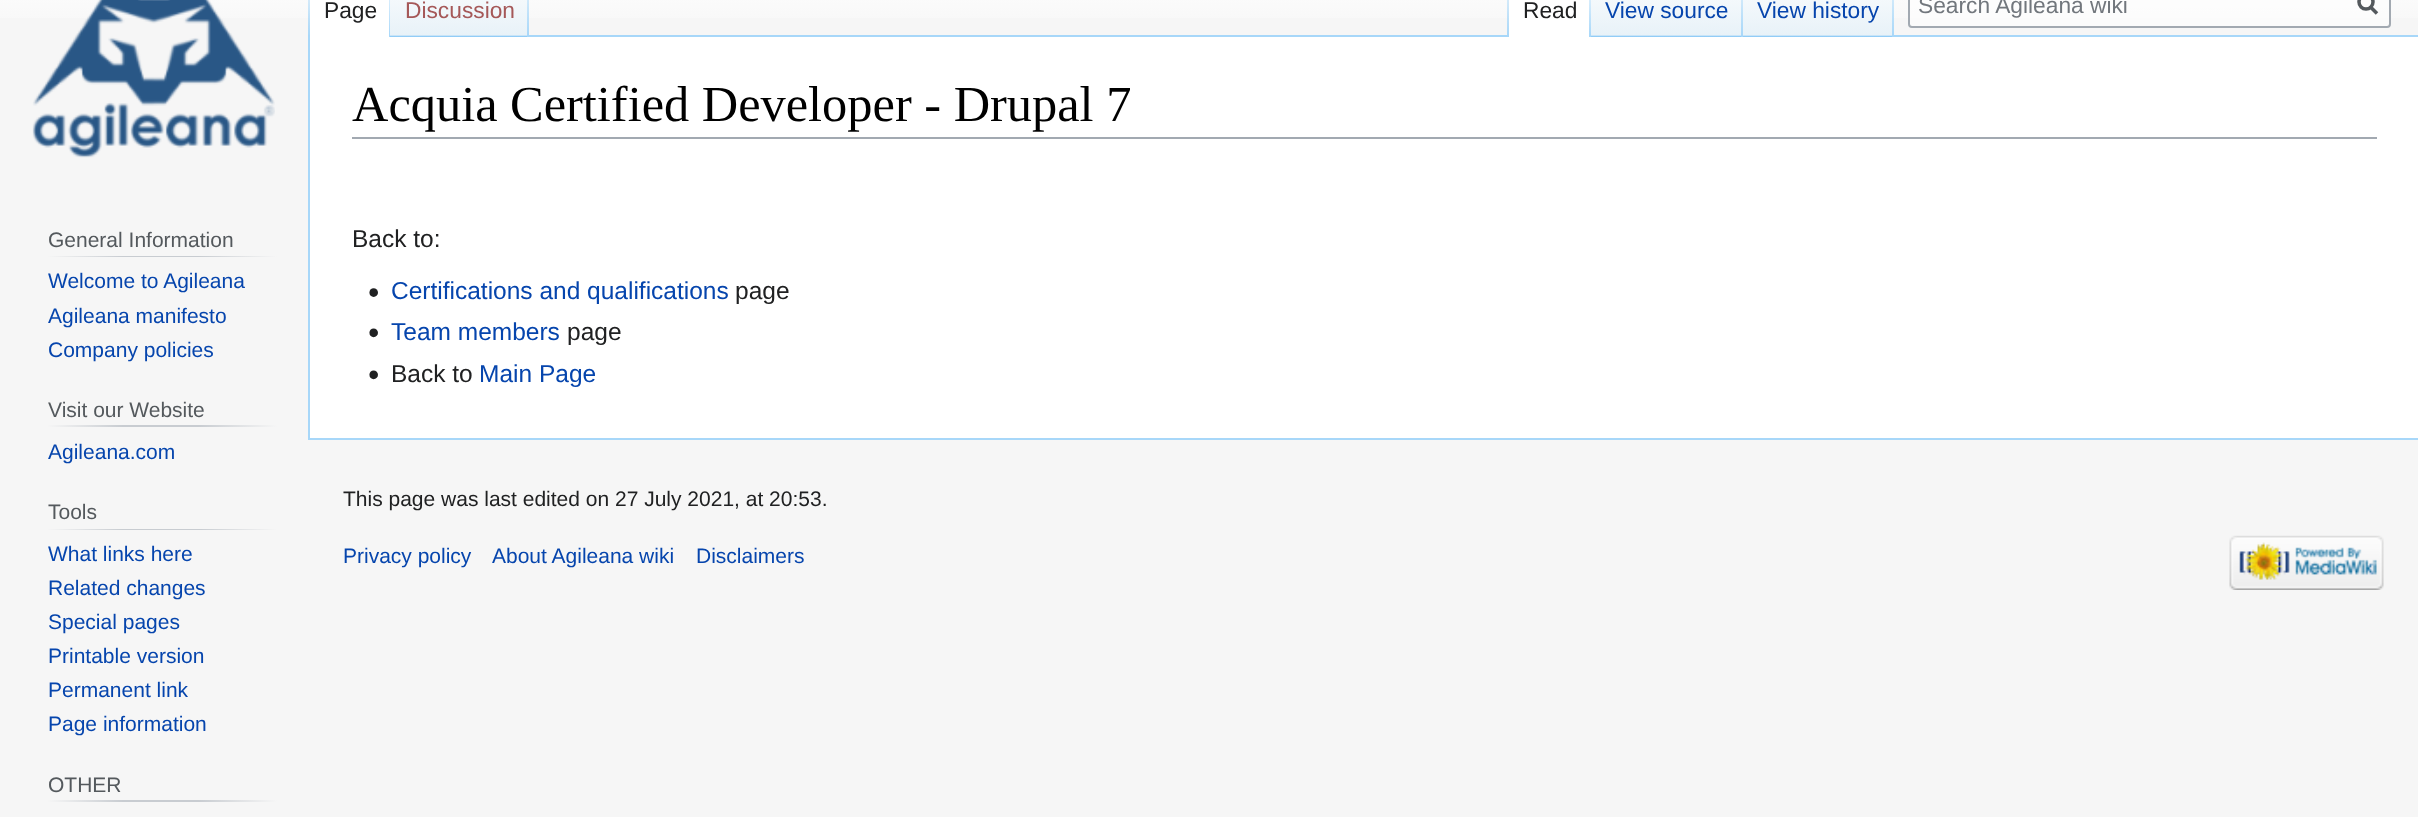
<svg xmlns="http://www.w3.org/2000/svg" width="2418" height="817">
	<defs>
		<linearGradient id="g1" gradientUnits="userSpaceOnUse" x1="1209" y1="-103" x2="1209" y2="37"><stop offset="0.5" stop-color="#FFFFFF" /><stop offset="1" stop-color="#F6F6F6" /></linearGradient>
		<linearGradient id="g2" gradientUnits="userSpaceOnUse" x1="309" y1="-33" x2="309" y2="37"><stop offset="0" stop-color="#A7D7F9" stop-opacity="0" /><stop offset="1" stop-color="#A7D7F9" /></linearGradient>
		<linearGradient id="g3" gradientUnits="userSpaceOnUse" x1="389" y1="-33" x2="389" y2="37"><stop offset="0" stop-color="#FFFFFF" /><stop offset="1" stop-color="#A7D7F9" /></linearGradient>
		<linearGradient id="g4" gradientUnits="userSpaceOnUse" x1="459" y1="37" x2="459" y2="-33"><stop offset="0" stop-color="#77C1F6" /><stop offset="0.03" stop-color="#E8F2F8" /><stop offset="1" stop-color="#FFFFFF" /></linearGradient>
		<linearGradient id="g5" gradientUnits="userSpaceOnUse" x1="528" y1="-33" x2="528" y2="37"><stop offset="0" stop-color="#A7D7F9" stop-opacity="0" /><stop offset="1" stop-color="#A7D7F9" /></linearGradient>
		<linearGradient id="g6" gradientUnits="userSpaceOnUse" x1="1508" y1="-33" x2="1508" y2="37"><stop offset="0" stop-color="#A7D7F9" stop-opacity="0" /><stop offset="1" stop-color="#A7D7F9" /></linearGradient>
		<linearGradient id="g7" gradientUnits="userSpaceOnUse" x1="1590" y1="-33" x2="1590" y2="37"><stop offset="0" stop-color="#FFFFFF" /><stop offset="1" stop-color="#A7D7F9" /></linearGradient>
		<linearGradient id="g8" gradientUnits="userSpaceOnUse" x1="1667" y1="37" x2="1667" y2="-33"><stop offset="0" stop-color="#77C1F6" /><stop offset="0.03" stop-color="#E8F2F8" /><stop offset="1" stop-color="#FFFFFF" /></linearGradient>
		<linearGradient id="g9" gradientUnits="userSpaceOnUse" x1="1742" y1="-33" x2="1742" y2="37"><stop offset="0" stop-color="#A7D7F9" stop-opacity="0" /><stop offset="1" stop-color="#A7D7F9" /></linearGradient>
		<linearGradient id="g10" gradientUnits="userSpaceOnUse" x1="1818" y1="37" x2="1818" y2="-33"><stop offset="0" stop-color="#77C1F6" /><stop offset="0.03" stop-color="#E8F2F8" /><stop offset="1" stop-color="#FFFFFF" /></linearGradient>
		<linearGradient id="g11" gradientUnits="userSpaceOnUse" x1="1893" y1="-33" x2="1893" y2="37"><stop offset="0" stop-color="#A7D7F9" stop-opacity="0" /><stop offset="1" stop-color="#A7D7F9" /></linearGradient>
		<linearGradient id="g12" gradientUnits="userSpaceOnUse" x1="47" y1="256" x2="277" y2="256"><stop offset="0" stop-color="#F6F6F6" /><stop offset="0.33" stop-color="#C8CCD1" /><stop offset="0.66" stop-color="#C8CCD1" /><stop offset="1" stop-color="#F6F6F6" /></linearGradient>
		<linearGradient id="g13" gradientUnits="userSpaceOnUse" x1="47" y1="426" x2="277" y2="426"><stop offset="0" stop-color="#F6F6F6" /><stop offset="0.33" stop-color="#C8CCD1" /><stop offset="0.66" stop-color="#C8CCD1" /><stop offset="1" stop-color="#F6F6F6" /></linearGradient>
		<linearGradient id="g14" gradientUnits="userSpaceOnUse" x1="47" y1="529" x2="277" y2="529"><stop offset="0" stop-color="#F6F6F6" /><stop offset="0.33" stop-color="#C8CCD1" /><stop offset="0.66" stop-color="#C8CCD1" /><stop offset="1" stop-color="#F6F6F6" /></linearGradient>
		<linearGradient id="g15" gradientUnits="userSpaceOnUse" x1="47" y1="801" x2="277" y2="801"><stop offset="0" stop-color="#F6F6F6" /><stop offset="0.33" stop-color="#C8CCD1" /><stop offset="0.66" stop-color="#C8CCD1" /><stop offset="1" stop-color="#F6F6F6" /></linearGradient>
	</defs>
	<rect width="100%" height="100%" fill="#F6F6F6" />
	<rect x="0" y="0" width="2418" height="18" fill="url(#g1)" />
	<rect x="308" y="438" width="2110" height="2" fill="#A7D7F9" />
	<rect x="308" y="35" width="2" height="404" fill="#A7D7F9" />
	<rect x="308" y="0" width="2" height="37" fill="url(#g2)" />
	<rect x="310" y="0" width="79" height="37" fill="#FFFFFF" />
	<rect x="389" y="0" width="1" height="37" fill="url(#g3)" />
	<text x="324" y="18" font-family="Liberation Sans" font-size="22.75" fill="#202122">Page</text>
	<rect x="390" y="0" width="139" height="37" fill="url(#g4)" />
	<rect x="527" y="0" width="2" height="37" fill="url(#g5)" />
	<text x="405" y="18" font-family="Liberation Sans" font-size="22.75" fill="#A55858">Discussion</text>
	<rect x="529" y="35" width="1889" height="2" fill="#A7D7F9" />
	<rect x="1507" y="0" width="2" height="37" fill="url(#g6)" />
	<rect x="1509" y="0" width="80" height="37" fill="#FFFFFF" />
	<rect x="1589" y="0" width="2" height="37" fill="url(#g7)" />
	<text x="1523" y="18" font-family="Liberation Sans" font-size="22.75" fill="#202122">Read</text>
	<rect x="1591" y="0" width="152" height="37" fill="url(#g8)" />
	<rect x="1741" y="0" width="2" height="37" fill="url(#g9)" />
	<text x="1605" y="18" font-family="Liberation Sans" font-size="22.75" fill="#0645AD">View source</text>
	<rect x="1743" y="0" width="151" height="37" fill="url(#g10)" />
	<rect x="1892" y="0" width="2" height="37" fill="url(#g11)" />
	<text x="1757" y="18" font-family="Liberation Sans" font-size="22.75" fill="#0645AD">View history</text>
	<rect x="1909" y="-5" width="481" height="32" rx="3" fill="#FFFFFF" fill-opacity="0.5" stroke="#A2A9B1" stroke-width="2" />
	<text x="1918" y="13" font-family="Liberation Sans" font-size="22.75" fill="#72777D">Search Agileana wiki</text>
	<path d="M2377 13.5L2370 6.5" fill="none" stroke="#54595D" stroke-width="3.5" />
	<circle cx="2366" cy="2" r="7" fill="none" stroke="#54595D" stroke-width="3.5" />
	<image x="32" y="0" width="243" height="158" href="assets/img1.png" />
	<rect x="47" y="256" width="230" height="1" fill="url(#g12)" />
	<text x="48" y="247" font-family="Liberation Sans" font-size="21" fill="#54595D">General Information</text>
	<g font-family="Liberation Sans" font-size="21" fill="#0645AD">
		<text x="48" y="288">Welcome to Agileana</text>
		<text x="48" y="323">Agileana manifesto</text>
		<text x="48" y="357">Company policies</text>
	</g>
	<rect x="47" y="425" width="230" height="2" fill="url(#g13)" />
	<text x="48" y="417" font-family="Liberation Sans" font-size="21" fill="#54595D">Visit our Website</text>
	<text x="48" y="459" font-family="Liberation Sans" font-size="21" fill="#0645AD">Agileana.com</text>
	<rect x="47" y="529" width="230" height="1" fill="url(#g14)" />
	<text x="48" y="519" font-family="Liberation Sans" font-size="21" fill="#54595D">Tools</text>
	<g font-family="Liberation Sans" font-size="21" fill="#0645AD">
		<text x="48" y="561">What links here</text>
		<text x="48" y="595">Related changes</text>
		<text x="48" y="629">Special pages</text>
		<text x="48" y="663">Printable version</text>
		<text x="48" y="697">Permanent link</text>
		<text x="48" y="731">Page information</text>
	</g>
	<rect x="47" y="800" width="230" height="2" fill="url(#g15)" />
	<text x="48" y="792" font-family="Liberation Sans" font-size="21" fill="#54595D">OTHER</text>
	<rect x="310" y="37" width="2108" height="401" fill="#FFFFFF" />
	<rect x="352" y="137" width="2025" height="2" fill="#A2A9B1" />
	<text x="352" y="121" font-family="Liberation Serif" font-size="50.4" fill="#000000">Acquia Certified Developer - Drupal 7</text>
	<text x="352" y="247" font-family="Liberation Sans" font-size="24.5" fill="#202122">Back to:</text>
	<image x="369" y="288" width="9" height="9" href="assets/img2.png" />
	<text x="391" y="299" font-family="Liberation Sans" font-size="24.5" fill="#0645AD">Certifications and qualifications</text>
	<text x="735" y="299" font-family="Liberation Sans" font-size="24.5" fill="#202122">page</text>
	<image x="369" y="328" width="9" height="10" href="assets/img3.png" />
	<text x="391" y="340" font-family="Liberation Sans" font-size="24.5" fill="#0645AD">Team members</text>
	<text x="567" y="340" font-family="Liberation Sans" font-size="24.5" fill="#202122">page</text>
	<image x="369" y="370" width="9" height="10" href="assets/img3.png" />
	<text x="391" y="382" font-family="Liberation Sans" font-size="24.5" fill="#202122">Back to</text>
	<text x="479" y="382" font-family="Liberation Sans" font-size="24.5" fill="#0645AD">Main Page</text>
	<text x="343" y="506" font-family="Liberation Sans" font-size="21" fill="#202122">This page was last edited on 27 July 2021, at 20:53.</text>
	<g font-family="Liberation Sans" font-size="21" fill="#0645AD">
		<text x="343" y="563">Privacy policy</text>
		<text x="492" y="563">About Agileana wiki</text>
		<text x="696" y="563">Disclaimers</text>
	</g>
	<image x="2229" y="535" width="155" height="55" href="assets/img4.png" />
</svg>
